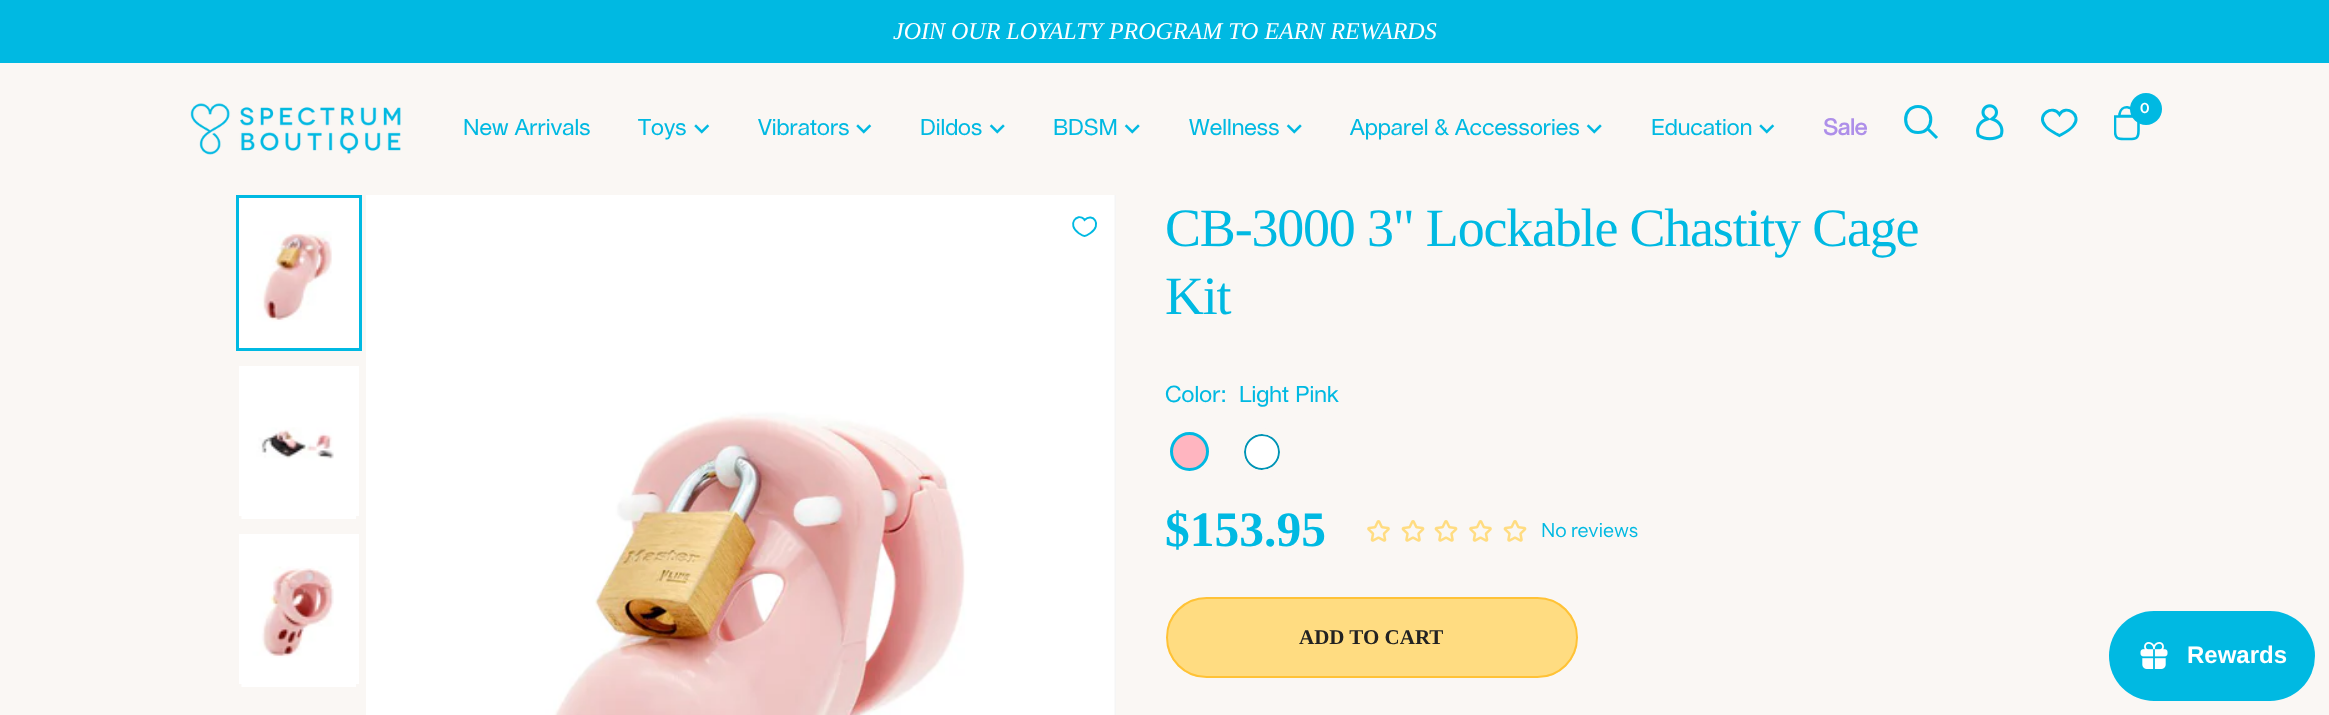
<svg xmlns="http://www.w3.org/2000/svg" width="2329" height="715">
	<defs>
		<clipPath id="clip1"><rect x="2114" y="105" width="27" height="36" /></clipPath>
		<clipPath id="clip2"><rect x="1166" y="597" width="412" height="81" rx="40.5" /></clipPath>
	</defs>
	<rect width="100%" height="100%" fill="#FAF7F4" />
	<rect x="0" y="0" width="2329" height="63" fill="#00B9E2" />
	<text x="893" y="39" font-family="Liberation Serif" font-size="24" font-style="italic" fill="#FFFFFF">JOIN OUR LOYALTY PROGRAM TO EARN REWARDS</text>
	<image x="190" y="103" width="211" height="52" href="assets/img1.png" />
	<path d="M1927 128L1937 138M1918 132.5C1935 132.5 1935 106.5 1918 106.5C1901.5 106.5 1901.5 132.5 1918 132.5Z" fill="none" stroke="#00B9E2" stroke-width="3.1" />
	<image x="1976" y="104" width="28" height="37" href="assets/img2.png" />
	<path d="M2055.5 133.5L2059.5 135.5C2064 133 2070 130.5 2073.5 125.5C2082.5 114.5 2065.5 104 2059.5 114.5C2053 104 2036 114.5 2045 125.5C2047.5 129 2052 131.5 2055.5 133.5" fill="none" stroke="#00B9E2" stroke-width="2.9" />
	<g clip-path="url(#clip1)">
		<path d="M2115 116.5H2138.5V130.5C2138.5 140 2135 139 2126.5 139C2119 139 2115 140 2115 130.5ZM2134 116C2134 105 2121 104.5 2119.5 114V116Z" fill="none" stroke="#00B9E2" stroke-width="2.6" />
	</g>
	<circle cx="2146" cy="109" r="16" fill="#00B9E2" />
	<text x="2140" y="113" font-family="Instrument Sans" font-size="14" font-weight="600" fill="#FFFFFF">0</text>
	<g font-family="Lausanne" font-size="22.5" fill="#00B9E2">
		<text x="463" y="135">New Arrivals</text>
		<text x="638" y="135">Toys</text>
	</g>
	<image x="694" y="124" width="16" height="10" href="assets/img3.png" />
	<text x="758" y="135" font-family="Lausanne" font-size="22.5" fill="#00B9E2">Vibrators</text>
	<image x="856" y="124" width="16" height="10" href="assets/img3.png" />
	<text x="920" y="135" font-family="Lausanne" font-size="22.5" fill="#00B9E2">Dildos</text>
	<image x="989" y="124" width="16" height="10" href="assets/img4.png" />
	<text x="1053" y="135" font-family="Lausanne" font-size="22.5" fill="#00B9E2">BDSM</text>
	<image x="1124" y="124" width="16" height="10" href="assets/img4.png" />
	<text x="1189" y="135" font-family="Lausanne" font-size="22.5" fill="#00B9E2">Wellness</text>
	<image x="1286" y="124" width="16" height="10" href="assets/img4.png" />
	<text x="1350" y="135" font-family="Lausanne" font-size="22.5" fill="#00B9E2">Apparel &amp; Accessories</text>
	<image x="1586" y="124" width="16" height="10" href="assets/img4.png" />
	<text x="1651" y="135" font-family="Lausanne" font-size="22.5" fill="#00B9E2">Education</text>
	<image x="1759" y="124" width="16" height="10" href="assets/img3.png" />
	<text x="1823" y="135" font-family="Lausanne" font-size="22.5" font-weight="700" fill="#AE8FE9">Sale</text>
	<rect x="239" y="198" width="120" height="150" fill="#FFFFFF" />
	<image x="241" y="231" width="91" height="117" href="assets/img5.png" />
	<rect x="237.5" y="196.5" width="123" height="153" fill="none" stroke="#00B9E2" stroke-width="3" />
	<rect x="239" y="366" width="120" height="150" fill="#FFFFFF" />
	<rect x="242" y="516" width="114" height="3" fill="#FFFFFF" />
	<image x="241" y="427" width="93" height="92" href="assets/img6.png" />
	<rect x="239" y="534" width="120" height="150" fill="#FFFFFF" />
	<rect x="242" y="684" width="114" height="3" fill="#FFFFFF" />
	<image x="241" y="566" width="93" height="121" href="assets/img7.png" />
	<rect x="1114" y="195" width="2" height="520" fill="#F5F5F5" />
	<image x="366" y="195" width="749" height="520" href="assets/img8.png" />
	<path d="M1084 219L1084.5 220C1093 212 1102.5 225 1090.5 233C1089 234 1086.5 236 1084.5 236C1082.5 236 1080 234 1078.5 233C1066.5 224.5 1077 212.5 1084 219Z" fill="none" stroke="#00B9E2" stroke-width="1.9" />
	<g font-family="Liberation Serif" font-size="54" letter-spacing="-1.2" fill="#00B9E2">
		<text x="1165" y="246">CB-3000 3" Lockable Chastity Cage</text>
		<text x="1165" y="314">Kit</text>
	</g>
	<g font-family="Lausanne" font-size="22.5" fill="#00B9E2">
		<text x="1165" y="402">Color:</text>
		<text x="1239" y="402">Light Pink</text>
	</g>
	<circle cx="1190" cy="452" r="21.5" fill="#FFB5C0" stroke="#FAF7F4" stroke-width="5" />
	<circle cx="1190" cy="452" r="19.5" fill="none" stroke="#FAF7F4" stroke-width="3" />
	<circle cx="1189.5" cy="451.5" r="18" fill="none" stroke="#00B9E2" stroke-width="3" />
	<circle cx="1262" cy="452" r="21.5" fill="#FFFFFF" stroke="#FAF7F4" stroke-width="5" />
	<circle cx="1262" cy="452" r="17" fill="none" stroke="#0094B5" stroke-width="2" />
	<circle cx="1262" cy="452" r="19.5" fill="none" stroke="#FAF7F4" stroke-width="3" />
	<text x="1165" y="546" font-family="Liberation Serif" font-size="49.5" font-weight="700" fill="#00B9E2">$153.95</text>
	<image x="1367" y="520" width="23" height="22" href="assets/img9.png" />
	<image x="1401" y="520" width="24" height="22" href="assets/img10.png" />
	<image x="1434" y="520" width="24" height="22" href="assets/img10.png" />
	<image x="1469" y="520" width="23" height="22" href="assets/img9.png" />
	<image x="1503" y="520" width="24" height="22" href="assets/img10.png" />
	<text x="1541" y="537" font-family="Instrument Sans" font-size="19.5" fill="#00B9E2">No reviews</text>
	<g clip-path="url(#clip2)">
		<rect x="1167" y="599" width="410" height="78" fill="#FFDC81" />
	</g>
	<rect x="1167" y="598" width="410" height="79" rx="39.5" fill="none" stroke="#FFC236" stroke-width="2" />
	<text x="1299" y="644" font-family="Liberation Serif" font-size="21" font-weight="700" fill="#222222">ADD TO CART</text>
	<rect x="2109" y="611" width="206" height="90" rx="45" fill="#00B9E2" />
	<image x="2140" y="642" width="28" height="27" href="assets/img11.png" />
	<text x="2187" y="663" font-family="Liberation Sans" font-size="24" font-weight="700" fill="#FFFFFF">Rewards</text>
</svg>
